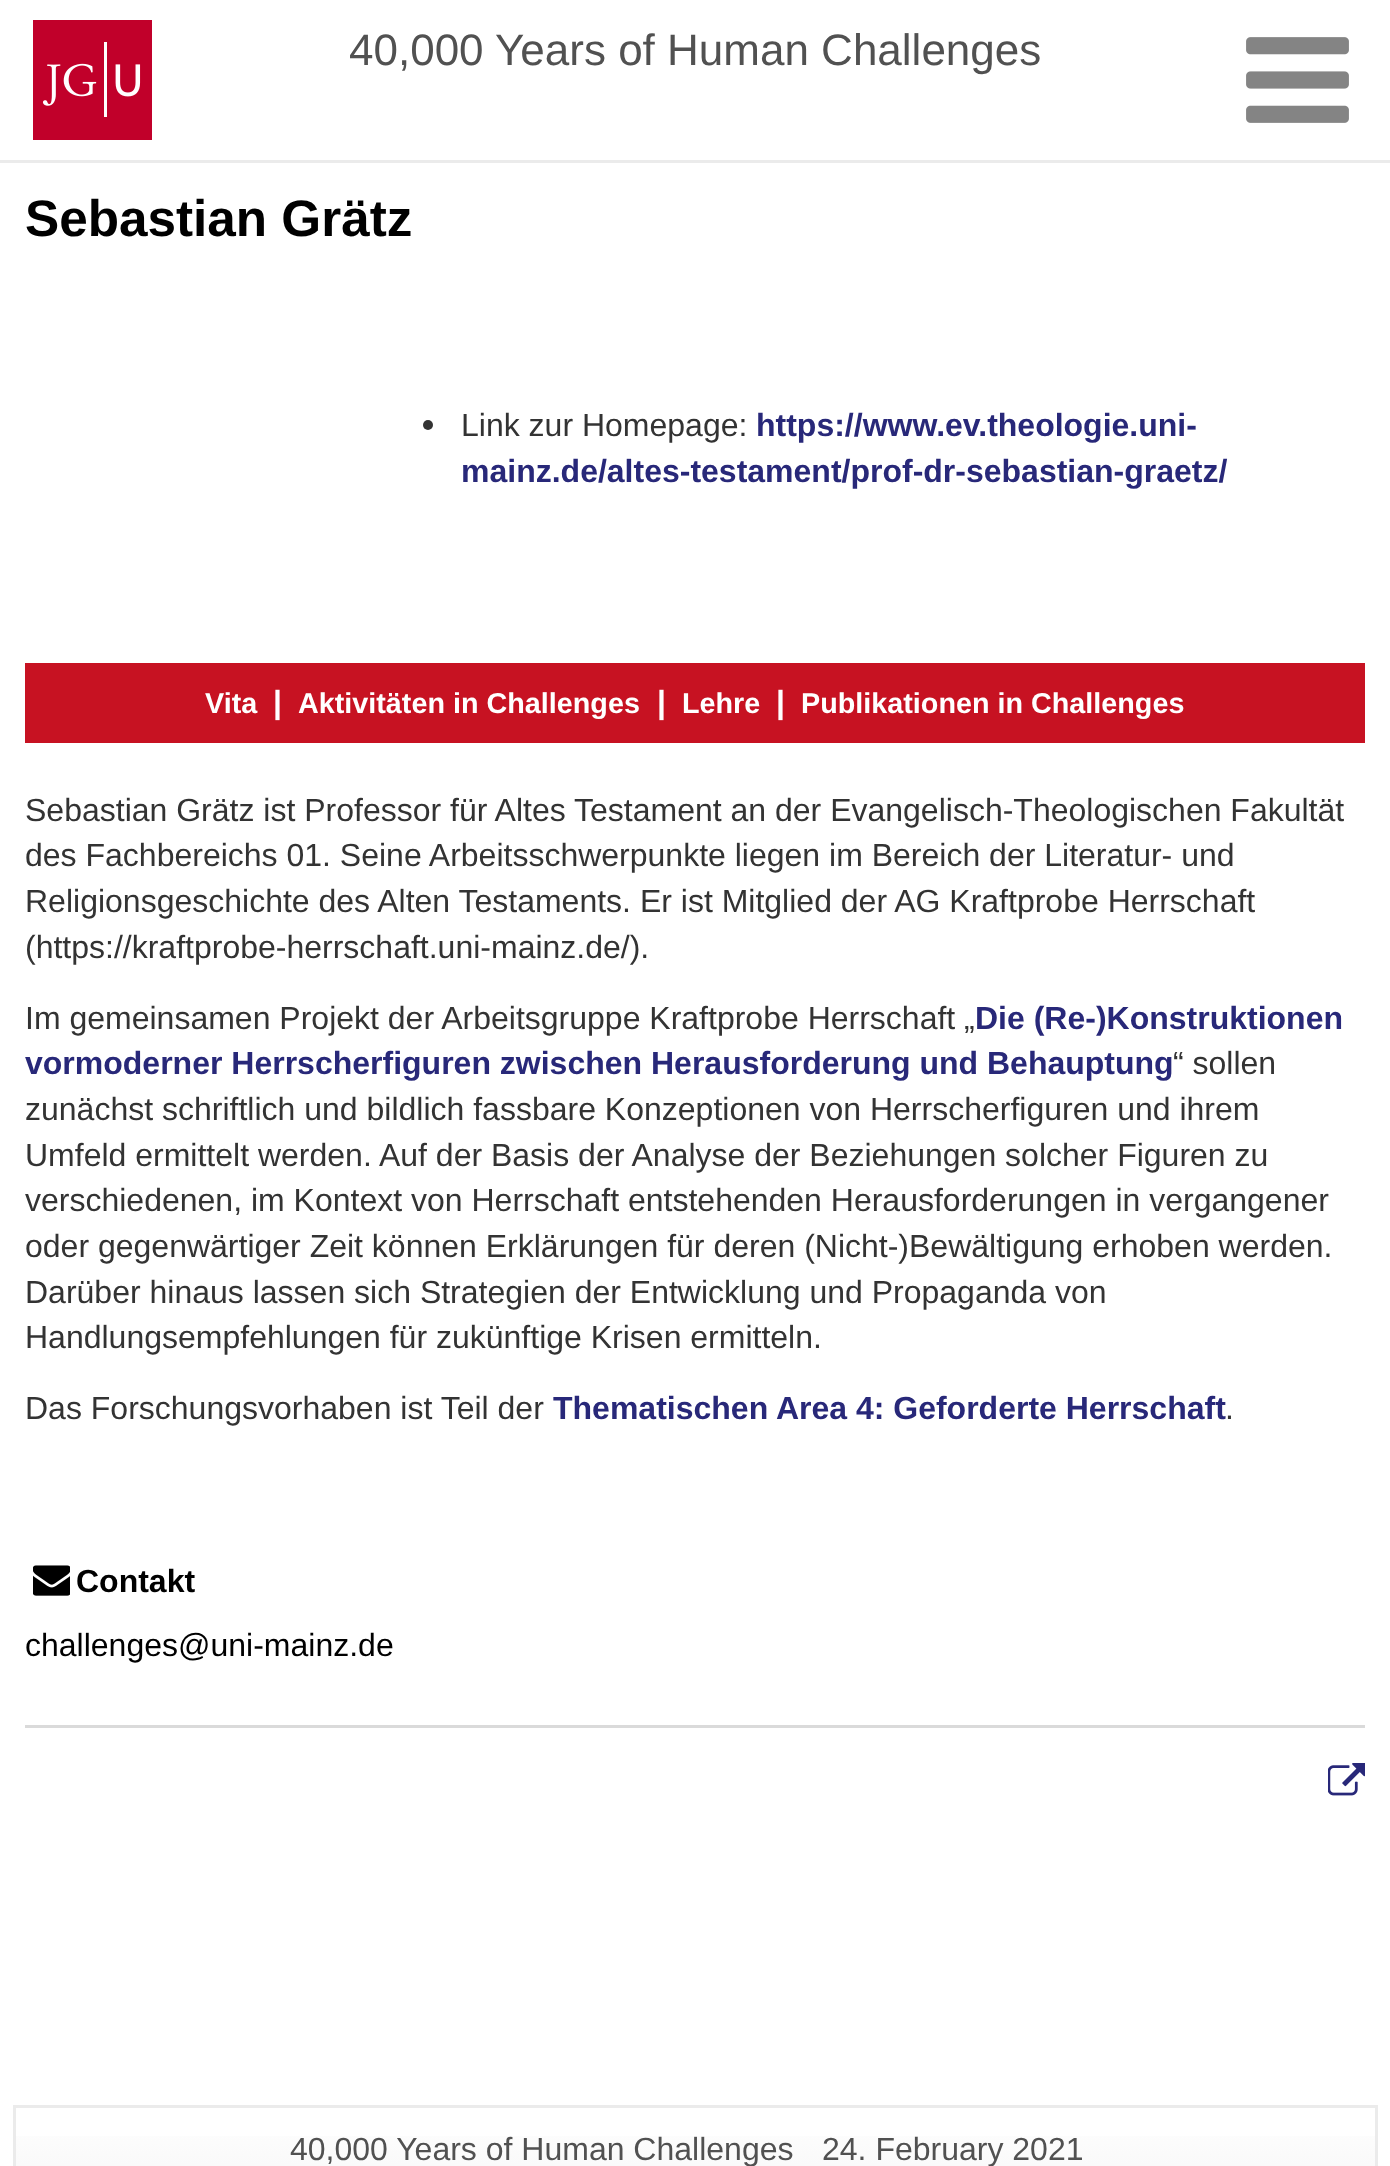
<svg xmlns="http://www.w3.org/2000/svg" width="1390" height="2166">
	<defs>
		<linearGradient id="g1" gradientUnits="userSpaceOnUse" x1="695" y1="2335" x2="695" y2="2108"><stop offset="0" stop-color="#EBEBEB" /><stop offset="1" stop-color="#FFFFFF" /></linearGradient>
	</defs>
	<rect width="100%" height="100%" fill="#FFFFFF" />
	<rect x="0" y="160" width="1390" height="3" fill="#EBEBEB" />
	<image x="33" y="20" width="119" height="120" href="assets/img1.png" />
	<text x="349" y="65" font-family="Liberation Sans" font-size="44" fill="#515151">40,000 Years of Human Challenges</text>
	<image x="1246" y="37" width="103" height="86" href="assets/img2.png" />
	<text x="25" y="236" font-family="Liberation Sans" font-size="51.25" font-weight="700" fill="#000000">Sebastian Grätz</text>
	<circle cx="428" cy="425" r="5" fill="#333333" />
	<text x="461" y="436" font-family="Liberation Sans" font-size="32" fill="#333333">Link zur Homepage:</text>
	<g font-family="Liberation Sans" font-size="32" font-weight="700" fill="#282879">
		<text x="756" y="436">https://www.ev.theologie.uni-</text>
		<text x="461" y="482">mainz.de/altes-testament/prof-dr-sebastian-graetz/</text>
	</g>
	<rect x="25" y="663" width="1340" height="80" fill="#C71222" />
	<text x="205" y="713" font-family="Liberation Sans" font-size="28.75" font-weight="700" fill="#FFFFFF">Vita</text>
	<text x="273" y="713" font-family="Liberation Sans" font-size="32" font-weight="700" fill="#FFFFFF">|</text>
	<text x="298" y="713" font-family="Liberation Sans" font-size="28.75" font-weight="700" fill="#FFFFFF">Aktivitäten in Challenges</text>
	<text x="657" y="713" font-family="Liberation Sans" font-size="32" font-weight="700" fill="#FFFFFF">|</text>
	<text x="682" y="713" font-family="Liberation Sans" font-size="28.75" font-weight="700" fill="#FFFFFF">Lehre</text>
	<text x="776" y="713" font-family="Liberation Sans" font-size="32" font-weight="700" fill="#FFFFFF">|</text>
	<text x="801" y="713" font-family="Liberation Sans" font-size="28.75" font-weight="700" fill="#FFFFFF">Publikationen in Challenges</text>
	<g font-family="Liberation Sans" font-size="32" fill="#333333">
		<text x="25" y="821">Sebastian Grätz ist Professor für Altes Testament an der Evangelisch-Theologischen Fakultät</text>
		<text x="25" y="866">des Fachbereichs 01. Seine Arbeitsschwerpunkte liegen im Bereich der Literatur- und</text>
		<text x="25" y="912">Religionsgeschichte des Alten Testaments. Er ist Mitglied der AG Kraftprobe Herrschaft</text>
		<text x="25" y="958">(https://kraftprobe-herrschaft.uni-mainz.de/).</text>
		<text x="25" y="1029">Im gemeinsamen Projekt der Arbeitsgruppe Kraftprobe Herrschaft „</text>
	</g>
	<g font-family="Liberation Sans" font-size="32" font-weight="700" fill="#282879">
		<text x="975" y="1029">Die (Re-)Konstruktionen</text>
		<text x="25" y="1074">vormoderner Herrscherfiguren zwischen Herausforderung und Behauptung</text>
	</g>
	<g font-family="Liberation Sans" font-size="32" fill="#333333">
		<text x="1173" y="1074">“ sollen</text>
		<text x="25" y="1120">zunächst schriftlich und bildlich fassbare Konzeptionen von Herrscherfiguren und ihrem</text>
		<text x="25" y="1166">Umfeld ermittelt werden. Auf der Basis der Analyse der Beziehungen solcher Figuren zu</text>
		<text x="25" y="1211">verschiedenen, im Kontext von Herrschaft entstehenden Herausforderungen in vergangener</text>
		<text x="25" y="1257">oder gegenwärtiger Zeit können Erklärungen für deren (Nicht-)Bewältigung erhoben werden.</text>
		<text x="25" y="1303">Darüber hinaus lassen sich Strategien der Entwicklung und Propaganda von</text>
		<text x="25" y="1348">Handlungsempfehlungen für zukünftige Krisen ermitteln.</text>
		<text x="25" y="1419">Das Forschungsvorhaben ist Teil der</text>
	</g>
	<text x="553" y="1419" font-family="Liberation Sans" font-size="32" font-weight="700" fill="#282879">Thematischen Area 4: Geforderte Herrschaft</text>
	<text x="1225" y="1419" font-family="Liberation Sans" font-size="32" fill="#333333">.</text>
	<rect x="25" y="1725" width="1340" height="3" fill="#DADADA" />
	<image x="33" y="1565" width="37" height="31" href="assets/img3.png" />
	<text x="76" y="1592" font-family="Liberation Sans" font-size="32" font-weight="700" fill="#000000">Contakt</text>
	<text x="25" y="1656" font-family="Liberation Sans" font-size="32" fill="#000000">challenges@uni-mainz.de</text>
	<image x="1328" y="1763" width="37" height="33" href="assets/img4.png" />
	<rect x="16" y="2136" width="1359" height="30" fill="url(#g1)" />
	<rect x="14.5" y="2106.5" width="1362" height="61" fill="none" stroke="#EBEBEB" stroke-width="3" />
	<g font-family="Liberation Sans" font-size="32" fill="#515151">
		<text x="290" y="2160">40,000 Years of Human Challenges</text>
		<text x="822" y="2160">24. February 2021</text>
	</g>
</svg>
